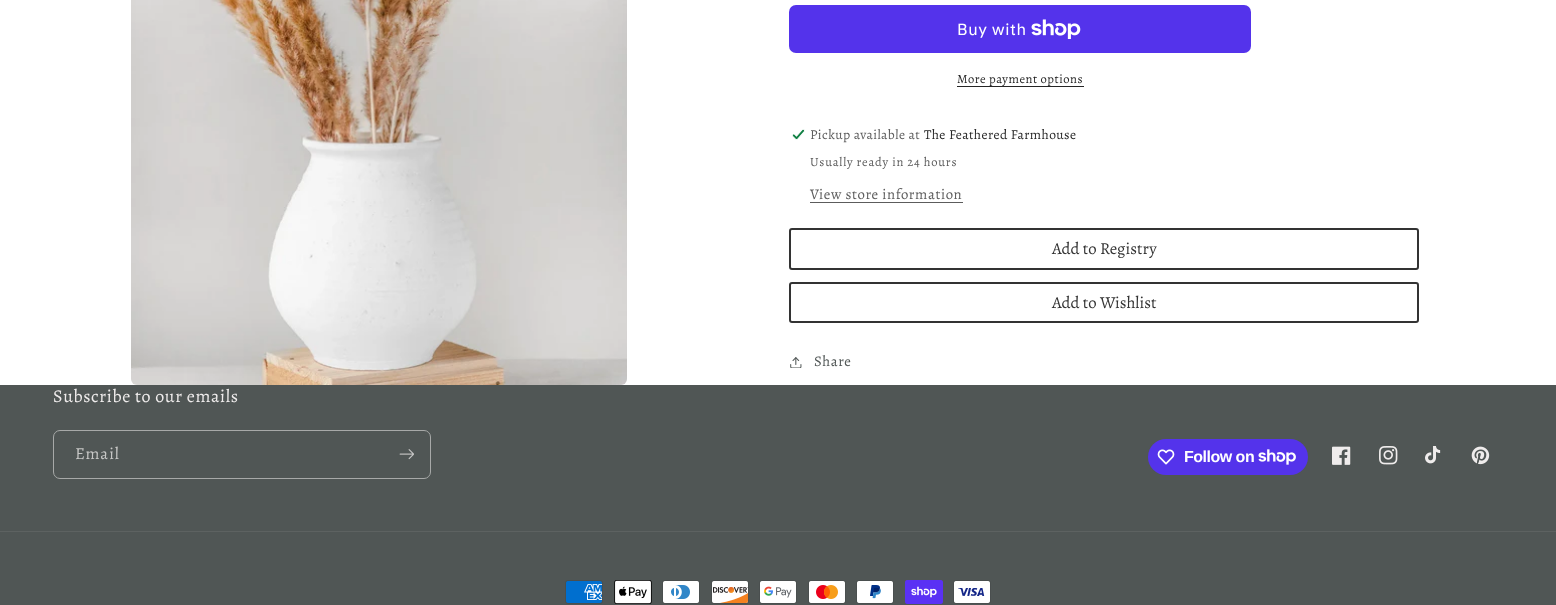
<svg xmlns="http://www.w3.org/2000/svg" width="1556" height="605">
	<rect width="100%" height="100%" fill="#FFFFFF" />
	<image x="131" y="0" width="496" height="385" href="assets/img1.png" />
	<rect x="789" y="5" width="462" height="48" rx="7" fill="#5433EB" />
	<text x="957" y="35" font-family="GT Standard" font-size="16" letter-spacing="0.6" fill="#FFFFFF">Buy with</text>
	<image x="1031" y="19" width="50" height="20" href="assets/img2.png" />
	<text x="957" y="83" font-family="Alegreya" font-size="12.6" letter-spacing="0.5" fill="#252525">More payment options</text>
	<rect x="957" y="86" width="127" height="1" fill="#252525" />
	<image x="792" y="129" width="13" height="11" href="assets/img3.png" />
	<text x="810" y="139" font-family="Alegreya" font-size="13.6" letter-spacing="0.4" fill="#5C5C5C">Pickup available at</text>
	<text x="924" y="139" font-family="Alegreya" font-size="13.6" letter-spacing="0.4" fill="#252525">The Feathered Farmhouse</text>
	<text x="810" y="166" font-family="Alegreya" font-size="12.6" letter-spacing="0.75" fill="#5C5C5C">Usually ready in 24 hours</text>
	<text x="810" y="199" font-family="Alegreya" font-size="14.75" letter-spacing="0.6" fill="#5C5C5C">View store information</text>
	<rect x="810" y="202" width="153" height="1" fill="#5C5C5C" />
	<rect x="790" y="229" width="628" height="40" rx="2" fill="none" stroke="#333333" stroke-width="2" />
	<text x="1052" y="254" font-family="Alegreya" font-size="16.75" fill="#333333">Add to Registry</text>
	<rect x="790" y="283" width="628" height="39" rx="2" fill="none" stroke="#333333" stroke-width="2" />
	<text x="1052" y="308" font-family="Alegreya" font-size="16.75" fill="#333333">Add to Wishlist</text>
	<image x="790" y="357" width="12" height="11" href="assets/img4.png" />
	<text x="814" y="366" font-family="Alegreya" font-size="14.75" letter-spacing="0.6" fill="#505655">Share</text>
	<rect x="0" y="385" width="1556" height="220" fill="#505655" />
	<text x="53" y="402" font-family="Alegreya" font-size="18" letter-spacing="0.6" fill="#EFECEC">Subscribe to our emails</text>
	<rect x="53.5" y="430.5" width="377" height="48" rx="6.5" fill="none" stroke="#A7A9A8" />
	<text x="75" y="459" font-family="Alegreya" font-size="16.75" letter-spacing="1" fill="#C7C7C6">Email</text>
	<image x="399" y="449" width="15" height="11" href="assets/img5.png" />
	<rect x="1148" y="439" width="160" height="36" rx="18" fill="#5433EB" />
	<image x="1157" y="449" width="18" height="16" href="assets/img6.png" />
	<text x="1184" y="462" font-family="Liberation Sans" font-size="16" font-weight="700" letter-spacing="-0.5" fill="#FFFFFF">Follow on</text>
	<image x="1258" y="449" width="38" height="16" href="assets/img7.png" />
	<image x="1332" y="446" width="19" height="19" href="assets/img8.png" />
	<image x="1379" y="446" width="19" height="19" href="assets/img9.png" />
	<image x="1425" y="446" width="16" height="18" href="assets/img10.png" />
	<image x="1471" y="446" width="19" height="19" href="assets/img11.png" />
	<rect x="0" y="531" width="1556" height="1" fill="#5D6261" />
	<image x="565" y="580" width="38" height="24" href="assets/img12.png" />
	<image x="614" y="580" width="38" height="24" href="assets/img13.png" />
	<image x="662" y="580" width="38" height="24" href="assets/img14.png" />
	<image x="711" y="580" width="38" height="24" href="assets/img15.png" />
	<image x="759" y="580" width="38" height="24" href="assets/img16.png" />
	<image x="808" y="580" width="38" height="24" href="assets/img17.png" />
	<image x="856" y="580" width="38" height="24" href="assets/img18.png" />
	<image x="905" y="580" width="38" height="24" href="assets/img19.png" />
	<image x="953" y="580" width="38" height="24" href="assets/img20.png" />
</svg>
